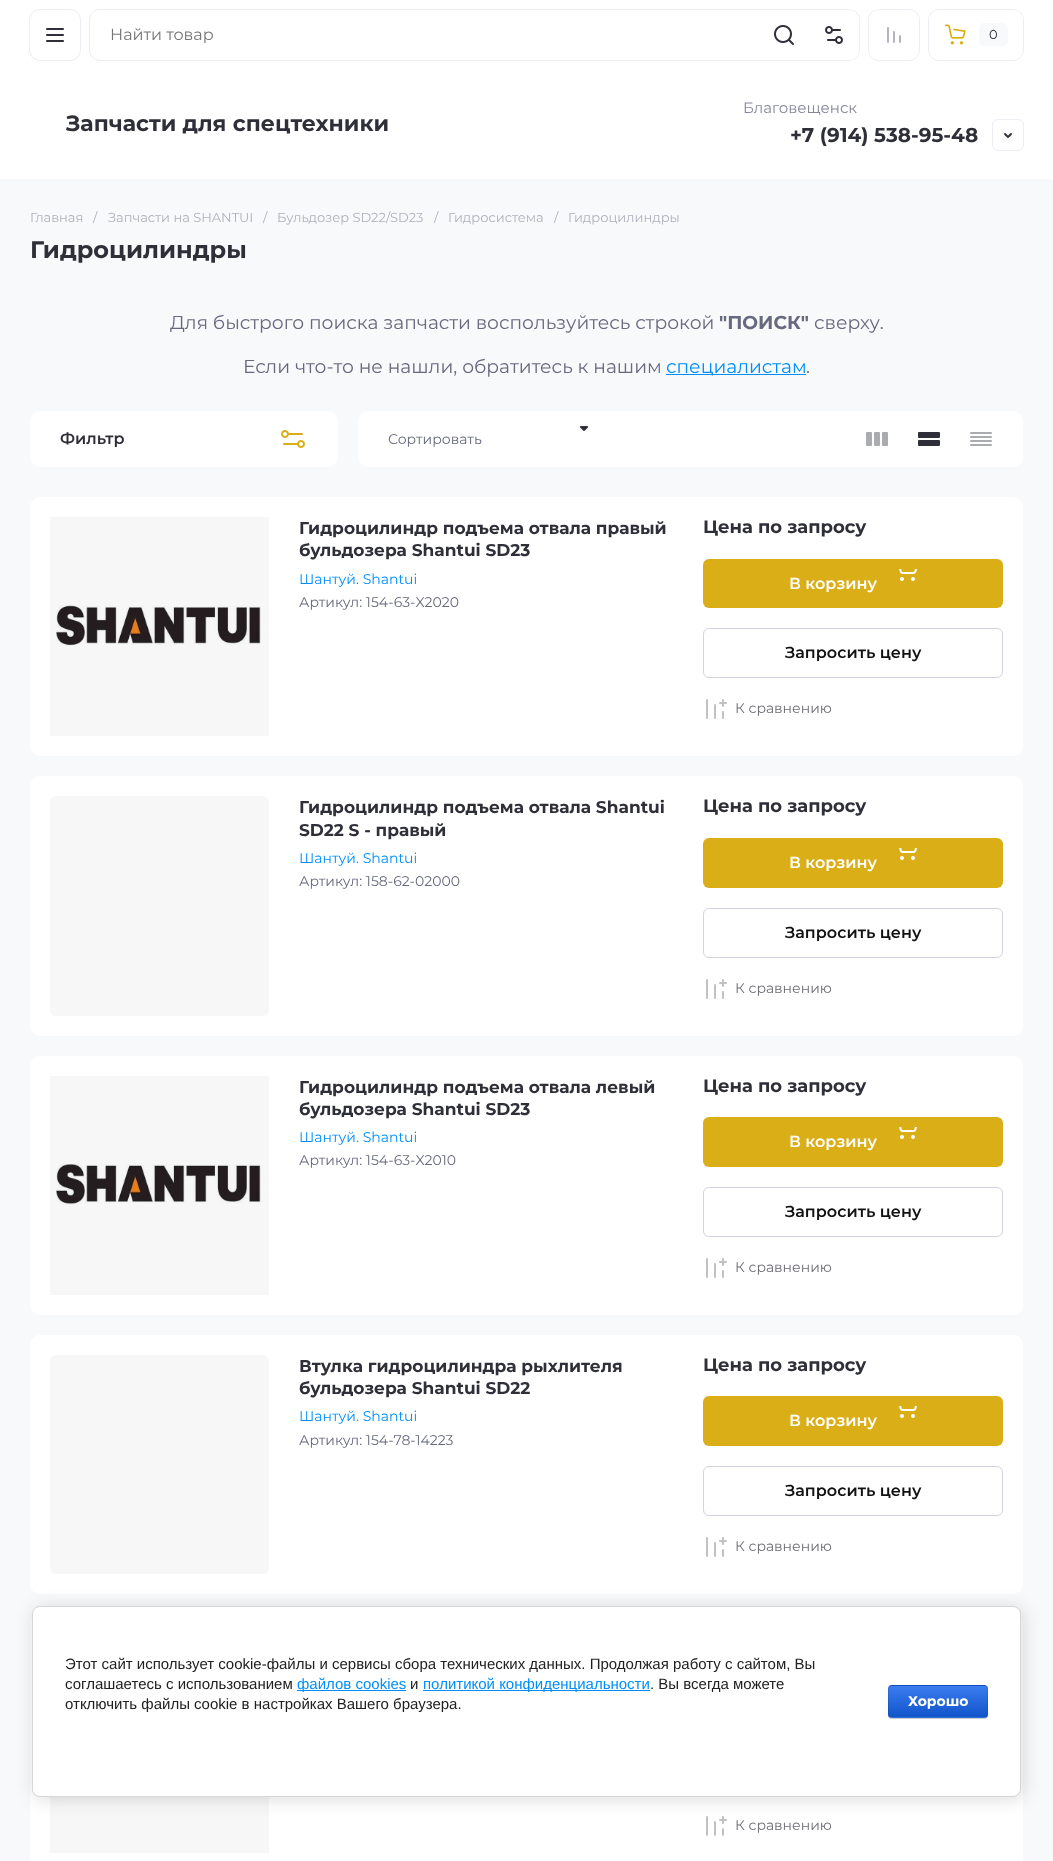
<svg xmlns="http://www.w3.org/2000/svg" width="1053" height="1861">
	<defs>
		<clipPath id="clip1"><rect x="888" y="1685" width="100" height="33" rx="4" /></clipPath>
		<linearGradient id="g1" gradientUnits="userSpaceOnUse" x1="938" y1="1655" x2="938" y2="1686"><stop offset="0" stop-color="#3B7CEF" /><stop offset="1" stop-color="#1155CC" /></linearGradient>
		<linearGradient id="g2" gradientUnits="userSpaceOnUse" x1="938" y1="1686" x2="938" y2="1717"><stop offset="0" stop-color="#3B7CEF" /><stop offset="1" stop-color="#1155CC" /></linearGradient>
		<linearGradient id="g3" gradientUnits="userSpaceOnUse" x1="938" y1="1717" x2="938" y2="1748"><stop offset="0" stop-color="#3B7CEF" /><stop offset="1" stop-color="#1155CC" /></linearGradient>
	</defs>
	<rect width="100%" height="100%" fill="#F8F9FB" />
	<rect x="0" y="0" width="1053" height="179" fill="#FFFFFF" />
	<rect x="29.5" y="9.5" width="51" height="51" rx="10.5" fill="none" stroke="#EDEDF3" />
	<image x="46" y="28" width="18" height="14" href="assets/img1.png" />
	<rect x="89.5" y="9.5" width="770" height="51" rx="10.5" fill="none" stroke="#EDEDF3" />
	<text x="110" y="40" font-family="Montserrat" font-size="16" fill="#757575">Найти товар</text>
	<image x="774" y="25" width="20" height="20" href="assets/img2.png" />
	<path d="M809 10H849C854.5 10 859 14.5 859 20V50C859 55.5 854.5 60 849 60H809Z" fill="#FFFFFF" />
	<image x="825" y="26" width="18" height="18" href="assets/img3.png" />
	<rect x="868.5" y="9.5" width="51" height="51" rx="10.5" fill="none" stroke="#EDEDF3" />
	<rect x="869" y="10" width="50" height="50" rx="10" fill="#FFFFFF" />
	<image x="887" y="27" width="14" height="16" href="assets/img4.png" />
	<rect x="928.5" y="9.5" width="95" height="51" rx="10.5" fill="none" stroke="#EDEDF3" />
	<rect x="929" y="10" width="94" height="50" rx="10" fill="#FFFFFF" />
	<image x="944" y="24" width="22" height="21" href="assets/img5.png" />
	<rect x="979" y="23" width="29" height="23" rx="5" fill="#F8F9FB" />
	<text x="989" y="39" font-family="Montserrat" font-size="13" fill="#2E2F38">0</text>
	<text x="66" y="131" font-family="Montserrat" font-size="22" font-weight="700" fill="#2E2F38">Запчасти для спецтехники</text>
	<text x="743" y="113" font-family="Montserrat" font-size="15" fill="#858798">Благовещенск</text>
	<text x="790" y="142" font-family="Montserrat" font-size="20" font-weight="700" fill="#2E2F38">+7 (914) 538-95-48</text>
	<rect x="992.5" y="119.5" width="31" height="31" rx="5.5" fill="none" stroke="#EDEDF3" />
	<image x="1004" y="133" width="8" height="5" href="assets/img6.png" />
	<g font-family="Montserrat" font-size="13" fill="#B0B1BD">
		<text x="30" y="222">Главная</text>
		<text x="93" y="222">/</text>
		<text x="108" y="222">Запчасти на SHANTUI</text>
		<text x="263" y="222">/</text>
		<text x="277" y="222">Бульдозер SD22/SD23</text>
		<text x="434" y="222">/</text>
		<text x="448" y="222">Гидросистема</text>
		<text x="554" y="222">/</text>
		<text x="568" y="222">Гидроцилиндры</text>
	</g>
	<text x="30" y="258" font-family="Montserrat" font-size="24" font-weight="700" fill="#2E2F38">Гидроцилиндры</text>
	<text x="170" y="329" font-family="Montserrat" font-size="18.7" fill="#67697E">Для быстрого поиска запчасти воспользуйтесь строкой</text>
	<text x="719" y="329" font-family="Montserrat" font-size="18.7" font-weight="700" fill="#67697E">"ПОИСК"</text>
	<g font-family="Montserrat" font-size="18.7" fill="#67697E">
		<text x="814" y="329">сверху.</text>
		<text x="243" y="373">Если что-то не нашли, обратитесь к нашим</text>
	</g>
	<rect x="666" y="374" width="140" height="1" fill="#008EFC" />
	<text x="666" y="373" font-family="Montserrat" font-size="18.7" fill="#008EFC">специалистам</text>
	<text x="806" y="373" font-family="Montserrat" font-size="18.7" fill="#67697E">.</text>
	<rect x="30" y="411" width="308" height="56" rx="10" fill="#FFFFFF" />
	<text x="60" y="444" font-family="Montserrat" font-size="16" font-weight="600" fill="#2E2F38">Фильтр</text>
	<image x="281" y="430" width="24" height="18" href="assets/img7.png" />
	<rect x="358" y="411" width="665" height="56" rx="10" fill="#FFFFFF" />
	<image x="580" y="426" width="8" height="5" href="assets/img8.png" />
	<text x="388" y="444" font-family="Montserrat" font-size="14" fill="#67697E">Сортировать</text>
	<image x="866" y="432" width="22" height="14" href="assets/img9.png" />
	<image x="918" y="432" width="22" height="14" href="assets/img10.png" />
	<image x="970" y="432" width="22" height="14" href="assets/img11.png" />
	<rect x="30" y="497" width="993" height="259" rx="10" fill="#FFFFFF" />
	<image x="56" y="605" width="205" height="41" href="assets/img12.png" />
	<rect x="50" y="517" width="219" height="219" fill="#000000" fill-opacity="0.03" />
	<g font-family="Montserrat" font-size="17" font-weight="700" fill="#2E2F38">
		<text x="299" y="534">Гидроцилиндр подъема отвала правый</text>
		<text x="299" y="556">бульдозера Shantui SD23</text>
	</g>
	<text x="299" y="584" font-family="Montserrat" font-size="14" fill="#008EFC">Шантуй. Shantui</text>
	<text x="299" y="607" font-family="Montserrat" font-size="14" fill="#67697E">Артикул: 154-63-X2020</text>
	<text x="703" y="533" font-family="Montserrat" font-size="18" font-weight="700" fill="#2E2F38">Цена по запросу</text>
	<rect x="703" y="559" width="300" height="49" rx="6" fill="#DAAE16" />
	<image x="899" y="569" width="18" height="12" href="assets/img13.png" />
	<text x="789" y="589" font-family="Montserrat" font-size="16" font-weight="600" fill="#FFFFFF">В корзину</text>
	<rect x="703.5" y="628.5" width="299" height="49" rx="5.5" fill="none" stroke="#D2D3E0" />
	<text x="785" y="658" font-family="Montserrat" font-size="16" font-weight="600" fill="#111111">Запросить цену</text>
	<image x="706" y="699" width="21" height="20" href="assets/img14.png" />
	<text x="735" y="713" font-family="Montserrat" font-size="14" fill="#6D6D74">К сравнению</text>
	<rect x="30" y="776" width="993" height="260" rx="10" fill="#FFFFFF" />
	<rect x="50" y="796" width="219" height="220" rx="6" fill="#F7F7F7" />
	<g font-family="Montserrat" font-size="17" font-weight="700" fill="#2E2F38">
		<text x="299" y="813">Гидроцилиндр подъема отвала Shantui</text>
		<text x="299" y="836">SD22 S - правый</text>
	</g>
	<text x="299" y="863" font-family="Montserrat" font-size="14" fill="#008EFC">Шантуй. Shantui</text>
	<text x="299" y="886" font-family="Montserrat" font-size="14" fill="#67697E">Артикул: 158-62-02000</text>
	<text x="703" y="812" font-family="Montserrat" font-size="18" font-weight="700" fill="#2E2F38">Цена по запросу</text>
	<rect x="703" y="838" width="300" height="50" rx="6" fill="#DAAE16" />
	<image x="899" y="848" width="18" height="12" href="assets/img13.png" />
	<text x="789" y="868" font-family="Montserrat" font-size="16" font-weight="600" fill="#FFFFFF">В корзину</text>
	<rect x="703.5" y="908.5" width="299" height="49" rx="5.5" fill="none" stroke="#D2D3E0" />
	<text x="785" y="938" font-family="Montserrat" font-size="16" font-weight="600" fill="#111111">Запросить цену</text>
	<image x="706" y="979" width="21" height="20" href="assets/img14.png" />
	<text x="735" y="993" font-family="Montserrat" font-size="14" fill="#6D6D74">К сравнению</text>
	<rect x="30" y="1056" width="993" height="259" rx="10" fill="#FFFFFF" />
	<image x="56" y="1164" width="205" height="41" href="assets/img15.png" />
	<rect x="50" y="1076" width="219" height="219" fill="#000000" fill-opacity="0.03" />
	<g font-family="Montserrat" font-size="17" font-weight="700" fill="#2E2F38">
		<text x="299" y="1093">Гидроцилиндр подъема отвала левый</text>
		<text x="299" y="1115">бульдозера Shantui SD23</text>
	</g>
	<text x="299" y="1142" font-family="Montserrat" font-size="14" fill="#008EFC">Шантуй. Shantui</text>
	<text x="299" y="1165" font-family="Montserrat" font-size="14" fill="#67697E">Артикул: 154-63-X2010</text>
	<text x="703" y="1092" font-family="Montserrat" font-size="18" font-weight="700" fill="#2E2F38">Цена по запросу</text>
	<rect x="703" y="1117" width="300" height="50" rx="6" fill="#DAAE16" />
	<image x="899" y="1127" width="18" height="12" href="assets/img13.png" />
	<text x="789" y="1147" font-family="Montserrat" font-size="16" font-weight="600" fill="#FFFFFF">В корзину</text>
	<rect x="703.5" y="1187.5" width="299" height="49" rx="5.5" fill="none" stroke="#D2D3E0" />
	<text x="785" y="1217" font-family="Montserrat" font-size="16" font-weight="600" fill="#111111">Запросить цену</text>
	<image x="706" y="1258" width="21" height="20" href="assets/img14.png" />
	<text x="735" y="1272" font-family="Montserrat" font-size="14" fill="#6D6D74">К сравнению</text>
	<rect x="30" y="1335" width="993" height="259" rx="10" fill="#FFFFFF" />
	<rect x="50" y="1355" width="219" height="219" rx="6" fill="#F7F7F7" />
	<g font-family="Montserrat" font-size="17" font-weight="700" fill="#2E2F38">
		<text x="299" y="1372">Втулка гидроцилиндра рыхлителя</text>
		<text x="299" y="1394">бульдозера Shantui SD22</text>
	</g>
	<text x="299" y="1421" font-family="Montserrat" font-size="14" fill="#008EFC">Шантуй. Shantui</text>
	<text x="299" y="1445" font-family="Montserrat" font-size="14" fill="#67697E">Артикул: 154-78-14223</text>
	<text x="703" y="1371" font-family="Montserrat" font-size="18" font-weight="700" fill="#2E2F38">Цена по запросу</text>
	<rect x="703" y="1396" width="300" height="50" rx="6" fill="#DAAE16" />
	<image x="899" y="1406" width="18" height="12" href="assets/img13.png" />
	<text x="789" y="1426" font-family="Montserrat" font-size="16" font-weight="600" fill="#FFFFFF">В корзину</text>
	<rect x="703.5" y="1466.5" width="299" height="49" rx="5.5" fill="none" stroke="#D2D3E0" />
	<text x="785" y="1496" font-family="Montserrat" font-size="16" font-weight="600" fill="#111111">Запросить цену</text>
	<image x="706" y="1537" width="21" height="20" href="assets/img14.png" />
	<text x="735" y="1551" font-family="Montserrat" font-size="14" fill="#6D6D74">К сравнению</text>
	<rect x="30" y="1614" width="993" height="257" rx="10" fill="#FFFFFF" />
	<rect x="50" y="1797" width="219" height="56" fill="#000000" fill-opacity="0.03" />
	<image x="706" y="1816" width="21" height="20" href="assets/img14.png" />
	<text x="735" y="1830" font-family="Montserrat" font-size="14" fill="#6D6D74">К сравнению</text>
	<rect x="34" y="1608" width="989" height="191" rx="8" fill="#000000" fill-opacity="0.14" filter="blur(9px)" />
	<rect x="32.5" y="1606.5" width="988" height="190" rx="7.5" fill="#FFFFFF" stroke="#D6D6D6" />
	<g font-family="Liberation Sans" font-size="15" fill="#212121">
		<text x="65" y="1669">Этот сайт использует cookie-файлы и сервисы сбора технических данных. Продолжая работу с сайтом, Вы</text>
		<text x="65" y="1689">соглашаетесь с использованием</text>
	</g>
	<rect x="297" y="1690" width="109" height="1" fill="#008EFC" />
	<text x="297" y="1689" font-family="Liberation Sans" font-size="15" fill="#008EFC">файлов cookies</text>
	<text x="410" y="1689" font-family="Liberation Sans" font-size="15" fill="#212121">и</text>
	<rect x="423" y="1690" width="227" height="1" fill="#008EFC" />
	<text x="423" y="1689" font-family="Liberation Sans" font-size="15" fill="#008EFC">политикой конфиденциальности</text>
	<g font-family="Liberation Sans" font-size="15" fill="#212121">
		<text x="650" y="1689">. Вы всегда можете</text>
		<text x="65" y="1709">отключить файлы cookie в настройках Вашего браузера.</text>
	</g>
	<rect x="888" y="1686" width="100" height="33" rx="4" fill="#000000" fill-opacity="0.2" filter="blur(0.5px)" />
	<g clip-path="url(#clip1)">
		<rect x="888" y="1685" width="100" height="1" fill="url(#g1)" />
		<rect x="888" y="1686" width="100" height="31" fill="url(#g2)" />
		<rect x="888" y="1717" width="100" height="1" fill="url(#g3)" />
	</g>
	<rect x="888.5" y="1685.5" width="99" height="32" rx="3.5" fill="none" stroke="#000000" stroke-opacity="0.1" />
	<text x="908" y="1706" font-family="Montserrat" font-size="14" font-weight="700" fill="#FFFFFF">Хорошо</text>
</svg>
